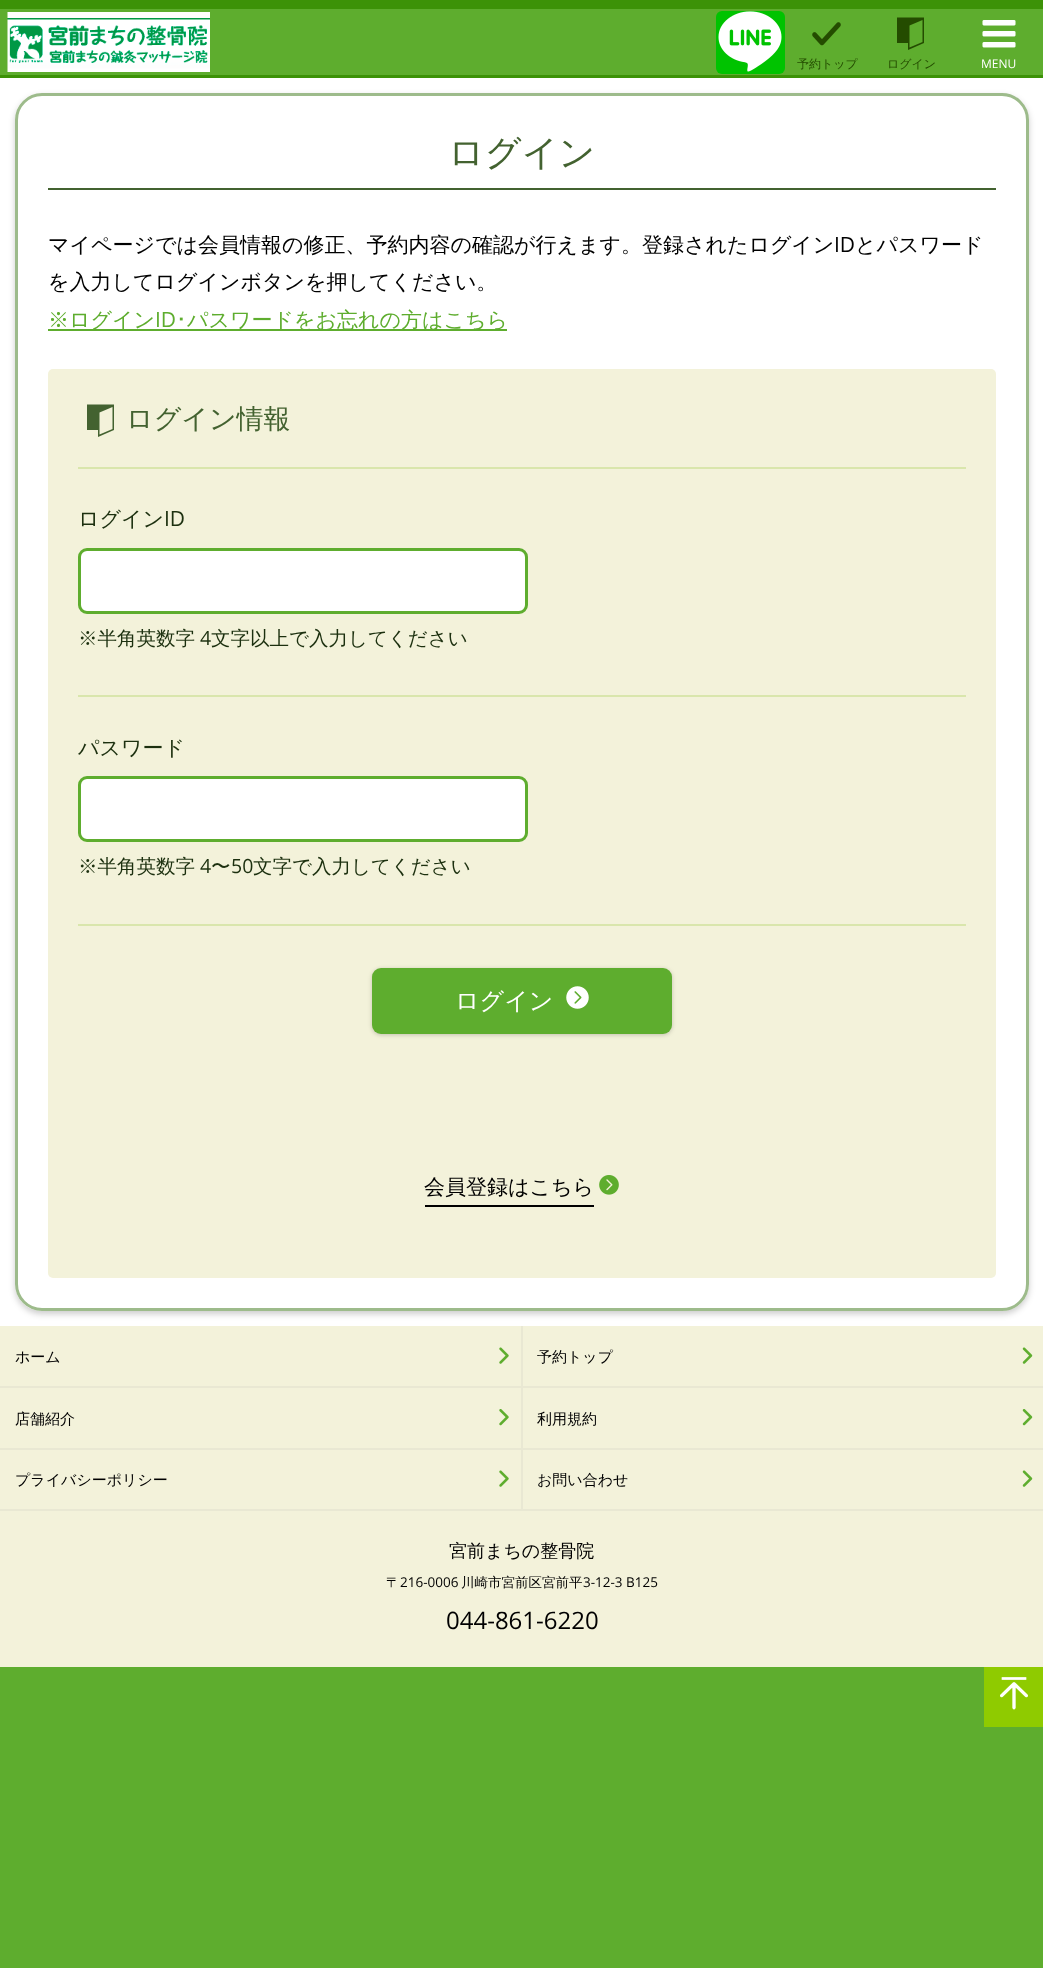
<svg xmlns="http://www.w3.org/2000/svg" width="1043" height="1968">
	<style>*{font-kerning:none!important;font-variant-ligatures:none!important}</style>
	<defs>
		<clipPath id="clip1"><path d="M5 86H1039V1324H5ZM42 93H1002C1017 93 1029 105 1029 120V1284C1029 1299 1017 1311 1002 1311H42C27 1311 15 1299 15 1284V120C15 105 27 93 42 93Z" clip-rule="evenodd" /></clipPath>
	</defs>
	<rect width="100%" height="100%" fill="#5EAD2E" />
	<rect x="0" y="78" width="1043" height="1248" fill="#FFFFFF" />
	<rect x="0" y="0" width="1043" height="9" fill="#3C9207" />
	<rect x="0" y="75" width="1043" height="3" fill="#3C9207" />
	<image x="7" y="12" width="203" height="60" href="assets/img1.png" />
	<rect x="716" y="11" width="69" height="63" rx="6" fill="#00C300" />
	<image x="718" y="11" width="64" height="61" href="assets/img2.png" />
	<image x="812" y="22" width="29" height="24" href="assets/img3.png" />
	<text x="797" y="68" font-family="WenQuanYi Zen Hei" font-size="12" font-weight="500" fill="#244C00">予約トップ</text>
	<path d="M897 17.5V43H908V50L924 43V17.5ZM922.5 42L909.5 47.5V25.5L922.5 20Z" fill="#244C00" />
	<text x="887" y="68" font-family="WenQuanYi Zen Hei" font-size="12" font-weight="500" fill="#244C00">ログイン</text>
	<image x="982" y="20" width="34" height="28" href="assets/img4.png" />
	<text x="981" y="68" font-family="Open Sans" font-size="12" fill="#FFFFFF">MENU</text>
	<g clip-path="url(#clip1)">
		<rect x="15" y="96" width="1014" height="1218" rx="27" fill="#000000" fill-opacity="0.2" filter="blur(3px)" />
	</g>
	<rect x="16.5" y="94.5" width="1011" height="1215" rx="25.5" fill="none" stroke="#9DBB8B" stroke-width="3" />
	<rect x="48" y="188" width="948" height="2" fill="#436230" />
	<text x="448" y="165" font-family="WenQuanYi Zen Hei" font-size="36" font-weight="500" fill="#436230">ログイン</text>
	<text x="48" y="252" font-family="WenQuanYi Zen Hei" font-size="21" font-weight="500" fill="#000000">マイページでは会員情報の修正、予約内容の確認が行えます。登録されたログイン</text>
	<text x="834" y="252" font-family="Open Sans" font-size="21" fill="#000000">ID</text>
	<g font-family="WenQuanYi Zen Hei" font-size="21" font-weight="500" fill="#000000">
		<text x="855" y="252">とパスワード</text>
		<text x="48" y="289">を入力してログインボタンを押してください。</text>
	</g>
	<rect x="48" y="329" width="459" height="2" fill="#5EAD2E" />
	<text x="48" y="327" font-family="WenQuanYi Zen Hei" font-size="21" font-weight="500" fill="#5EAD2E">※ログイン</text>
	<text x="155" y="327" font-family="Open Sans" font-size="21" fill="#5EAD2E">ID</text>
	<text x="176" y="327" font-family="IPAPGothic" font-size="21" fill="#5EAD2E">･</text>
	<text x="187" y="327" font-family="WenQuanYi Zen Hei" font-size="21" font-weight="500" fill="#5EAD2E">パスワードをお忘れの方はこちら</text>
	<rect x="48" y="369" width="948" height="909" rx="5" fill="#F3F2DA" />
	<path d="M87 404.5V430H98V437L114 430V404.5ZM112.5 429L99.5 434.5V412.5L112.5 407Z" fill="#436230" />
	<text x="126" y="428" font-family="WenQuanYi Zen Hei" font-size="27" font-weight="500" fill="#436230">ログイン情報</text>
	<rect x="78" y="467" width="888" height="2" fill="#D9E6AC" />
	<text x="78" y="526" font-family="WenQuanYi Zen Hei" font-size="21" font-weight="500" fill="#1C300F">ログイン</text>
	<text x="164" y="526" font-family="Open Sans" font-size="21" fill="#1C300F">ID</text>
	<rect x="79.5" y="549.5" width="447" height="63" rx="7.5" fill="#FFFFFF" stroke="#5EAD2E" stroke-width="3" />
	<text x="78" y="645" font-family="WenQuanYi Zen Hei" font-size="19.5" font-weight="500" fill="#1C300F">※半角英数字</text>
	<text x="200" y="645" font-family="Open Sans" font-size="19.5" fill="#1C300F">4</text>
	<text x="211" y="645" font-family="WenQuanYi Zen Hei" font-size="19.5" font-weight="500" fill="#1C300F">文字以上で入力してください</text>
	<rect x="78" y="695" width="888" height="2" fill="#D9E6AC" />
	<text x="78" y="755" font-family="WenQuanYi Zen Hei" font-size="21" font-weight="500" fill="#1C300F">パスワード</text>
	<rect x="79.5" y="777.5" width="447" height="63" rx="7.5" fill="#FFFFFF" stroke="#5EAD2E" stroke-width="3" />
	<text x="78" y="873" font-family="WenQuanYi Zen Hei" font-size="19.5" font-weight="500" fill="#1C300F">※半角英数字</text>
	<text x="200" y="873" font-family="Open Sans" font-size="19.5" fill="#1C300F">4</text>
	<text x="211" y="873" font-family="WenQuanYi Zen Hei" font-size="19.5" font-weight="500" fill="#1C300F">〜</text>
	<text x="231" y="873" font-family="Open Sans" font-size="19.5" fill="#1C300F">50</text>
	<text x="253" y="873" font-family="WenQuanYi Zen Hei" font-size="19.5" font-weight="500" fill="#1C300F">文字で入力してください</text>
	<rect x="78" y="924" width="888" height="2" fill="#D9E6AC" />
	<rect x="372" y="969" width="300" height="66" rx="9" fill="#000000" fill-opacity="0.2" filter="blur(2px)" />
	<rect x="372" y="968" width="300" height="66" rx="9" fill="#5EAD2E" />
	<text x="455" y="1009" font-family="WenQuanYi Zen Hei" font-size="24" font-weight="500" fill="#FFFFFF">ログイン</text>
	<image x="566" y="986" width="23" height="23" href="assets/img5.png" />
	<rect x="425" y="1205" width="169" height="2" fill="#000000" />
	<text x="424" y="1194" font-family="WenQuanYi Zen Hei" font-size="21" font-weight="500" fill="#000000">会員登録はこちら</text>
	<image x="599" y="1175" width="20" height="20" href="assets/img6.png" />
	<rect x="0" y="1326" width="1043" height="341" fill="#F3F2DA" />
	<rect x="0" y="1386" width="1043" height="2" fill="#E9E8D3" />
	<rect x="521" y="1326" width="2" height="60" fill="#E9E8D3" />
	<text x="15" y="1362" font-family="WenQuanYi Zen Hei" font-size="15" font-weight="500" fill="#000000">ホーム</text>
	<image x="499" y="1347" width="10" height="17" href="assets/img7.png" />
	<text x="537" y="1362" font-family="WenQuanYi Zen Hei" font-size="15" font-weight="500" fill="#000000">予約トップ</text>
	<image x="1022" y="1347" width="11" height="17" href="assets/img8.png" />
	<rect x="0" y="1448" width="1043" height="2" fill="#E9E8D3" />
	<rect x="521" y="1388" width="2" height="60" fill="#E9E8D3" />
	<text x="15" y="1424" font-family="WenQuanYi Zen Hei" font-size="15" font-weight="500" fill="#000000">店舗紹介</text>
	<image x="499" y="1409" width="10" height="17" href="assets/img9.png" />
	<text x="537" y="1424" font-family="WenQuanYi Zen Hei" font-size="15" font-weight="500" fill="#000000">利用規約</text>
	<image x="1022" y="1409" width="11" height="17" href="assets/img10.png" />
	<rect x="0" y="1509" width="1043" height="2" fill="#E9E8D3" />
	<rect x="521" y="1449" width="2" height="60" fill="#E9E8D3" />
	<text x="15" y="1485" font-family="WenQuanYi Zen Hei" font-size="15" font-weight="500" fill="#000000">プライバシーポリシー</text>
	<image x="499" y="1470" width="10" height="17" href="assets/img7.png" />
	<text x="537" y="1485" font-family="WenQuanYi Zen Hei" font-size="15" font-weight="500" fill="#000000">お問い合わせ</text>
	<image x="1022" y="1470" width="11" height="17" href="assets/img8.png" />
	<text x="449" y="1557" font-family="WenQuanYi Zen Hei" font-size="18" font-weight="500" fill="#000000">宮前まちの整骨院</text>
	<text x="386" y="1587" font-family="WenQuanYi Zen Hei" font-size="13.5" font-weight="500" fill="#000000">〒</text>
	<text x="400" y="1587" font-family="Open Sans" font-size="13.5" fill="#000000">216-0006</text>
	<text x="461" y="1587" font-family="WenQuanYi Zen Hei" font-size="13.5" font-weight="500" fill="#000000">川崎市宮前区宮前平</text>
	<text x="583" y="1587" font-family="Open Sans" font-size="13.5" fill="#000000">3-12-3 B125</text>
	<text x="446" y="1629" font-family="Open Sans" font-size="24" fill="#000000">044-861-6220</text>
	<rect x="984" y="1667" width="59" height="60" fill="#8FCB00" />
	<image x="1000" y="1677" width="28" height="33" href="assets/img11.png" />
</svg>
